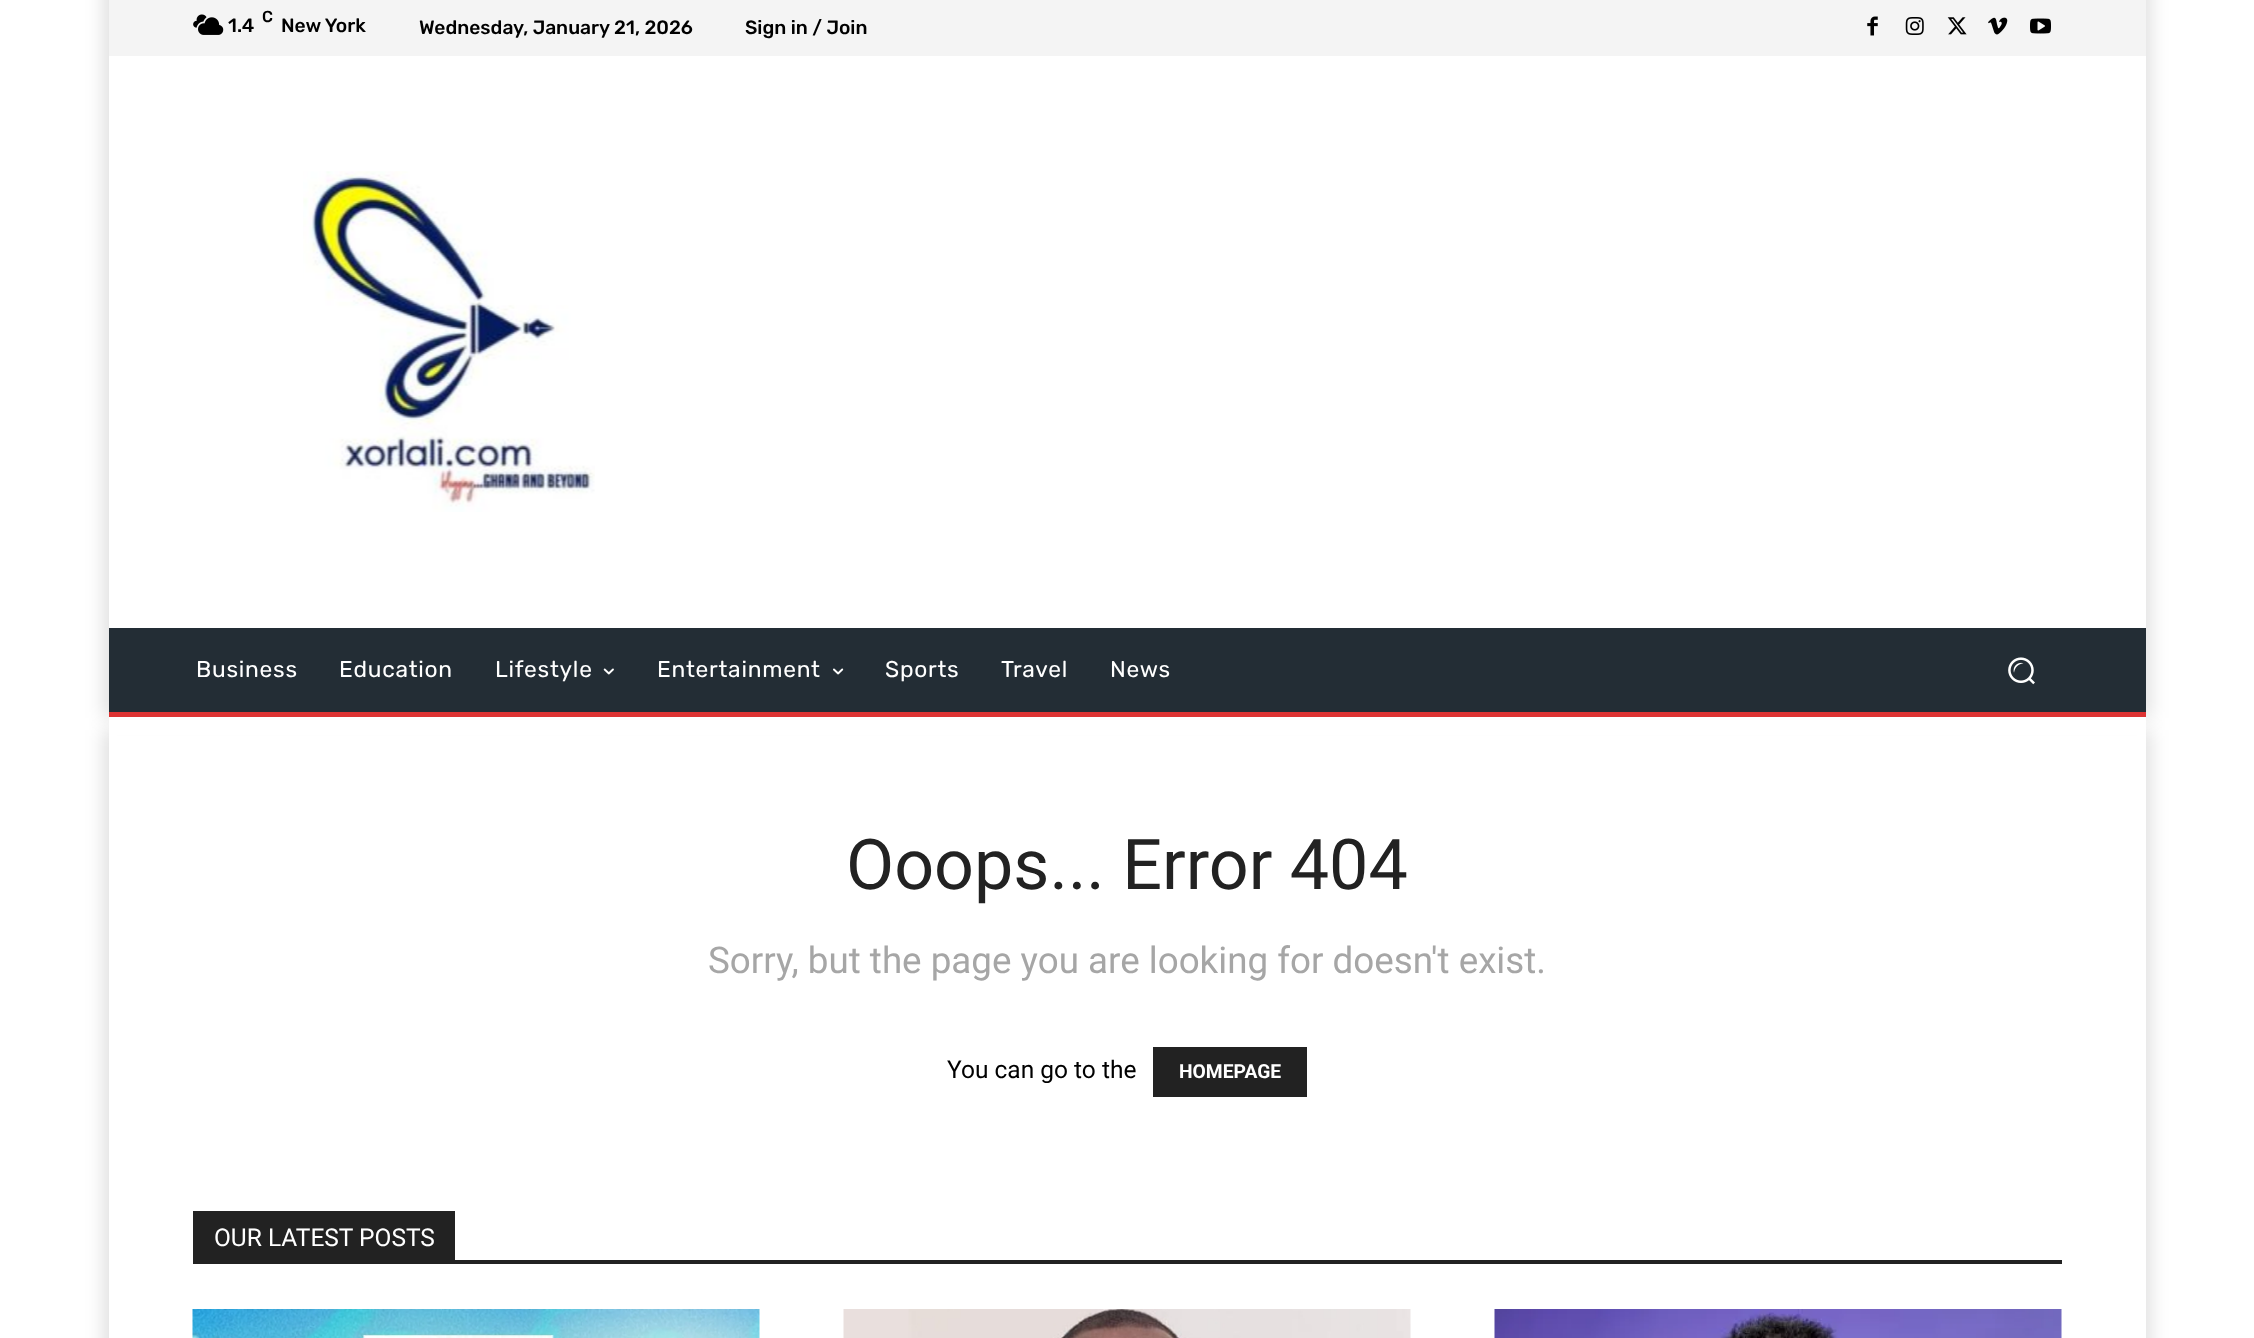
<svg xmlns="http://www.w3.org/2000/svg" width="2254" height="1338">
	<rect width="100%" height="100%" fill="#FFFFFF" />
	<rect x="103" y="730" width="2048" height="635" fill="#000000" fill-opacity="0.12" filter="blur(9px)" />
	<rect x="109" y="735" width="2037" height="603" fill="#FFFFFF" />
	<rect x="103" y="-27" width="2048" height="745" fill="#000000" fill-opacity="0.12" filter="blur(9px)" />
	<rect x="109" y="0" width="2037" height="56" fill="#F4F4F4" />
	<image x="193" y="14" width="31" height="21" href="assets/img1.png" />
	<text x="262" y="22" font-family="Rubik" font-size="16" font-weight="500" fill="#000000">C</text>
	<g font-family="Rubik" font-size="19.25" font-weight="500" fill="#000000">
		<text x="228" y="32">1.4</text>
		<text x="281" y="32">New York</text>
		<text x="419" y="34">Wednesday, January 21, 2026</text>
		<text x="745" y="34">Sign in / Join</text>
	</g>
	<image x="1867" y="16" width="11" height="20" href="assets/img2.png" />
	<image x="1905" y="17" width="19" height="18" href="assets/img3.png" />
	<image x="1947" y="17" width="20" height="18" href="assets/img4.png" />
	<image x="1988" y="17" width="20" height="18" href="assets/img5.png" />
	<image x="2030" y="18" width="21" height="16" href="assets/img6.png" />
	<rect x="109" y="56" width="2037" height="679" fill="#FFFFFF" />
	<image x="303" y="171" width="292" height="341" href="assets/img7.png" />
	<rect x="109" y="628" width="2037" height="84" fill="#232D35" />
	<g font-family="Rubik" font-size="22.75" letter-spacing="0.75" fill="#FFFFFF">
		<text x="196" y="677">Business</text>
		<text x="339" y="677">Education</text>
		<text x="495" y="677">Lifestyle</text>
	</g>
	<image x="603" y="668" width="11" height="7" href="assets/img8.png" />
	<text x="657" y="677" font-family="Rubik" font-size="22.75" letter-spacing="0.75" fill="#FFFFFF">Entertainment</text>
	<image x="833" y="668" width="11" height="7" href="assets/img9.png" />
	<g font-family="Rubik" font-size="22.75" letter-spacing="0.75" fill="#FFFFFF">
		<text x="885" y="677">Sports</text>
		<text x="1001" y="677">Travel</text>
		<text x="1110" y="677">News</text>
	</g>
	<image x="2008" y="657" width="27" height="28" href="assets/img10.png" />
	<rect x="109" y="712" width="2037" height="5" fill="#DD3333" />
	<text x="846" y="889" font-family="Roboto" font-size="70" fill="#222222">Ooops... Error 404</text>
	<text x="708" y="973" font-family="Roboto" font-size="36.75" fill="#A6A6A6">Sorry, but the page you are looking for doesn't exist.</text>
	<text x="947" y="1078" font-family="Roboto" font-size="24.5" fill="#000000">You can go to the</text>
	<rect x="1153" y="1047" width="154" height="50" fill="#222222" />
	<text x="1179" y="1078" font-family="Roboto" font-size="19.25" font-weight="700" fill="#FFFFFF">HOMEPAGE</text>
	<rect x="193" y="1260" width="1869" height="4" fill="#222222" />
	<rect x="193" y="1211" width="262" height="49" fill="#222222" />
	<text x="214" y="1246" font-family="Roboto" font-size="24.5" fill="#FFFFFF">OUR LATEST POSTS</text>
	<image x="192" y="1309" width="568" height="29" href="assets/img11.png" />
	<image x="843" y="1309" width="568" height="29" href="assets/img12.png" />
	<image x="1494" y="1309" width="568" height="29" href="assets/img13.png" />
</svg>
